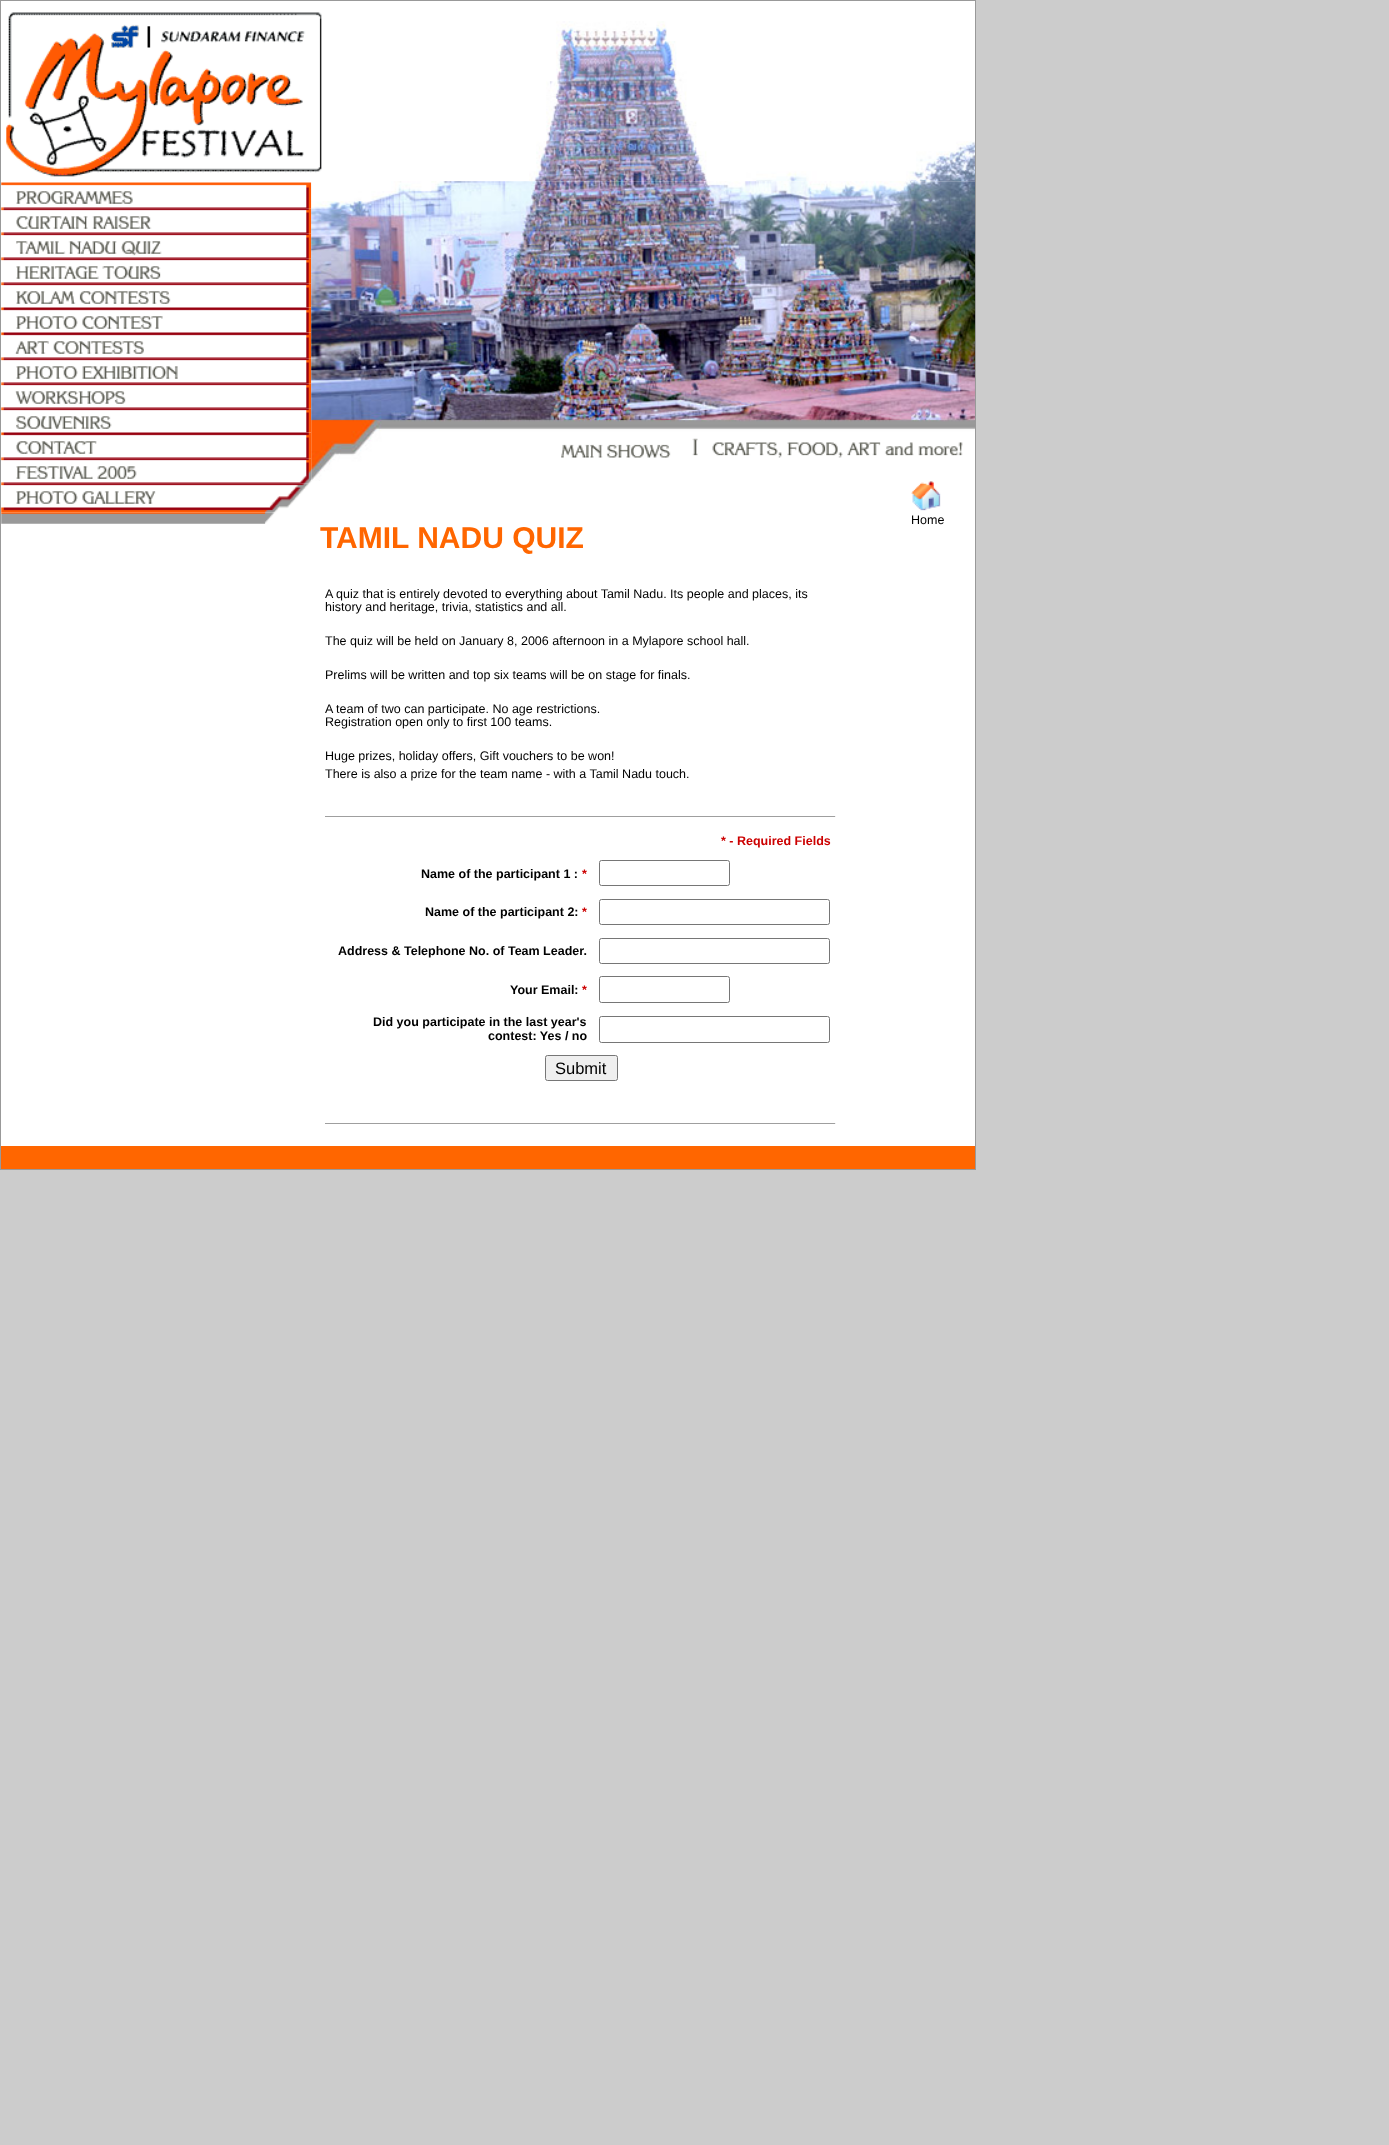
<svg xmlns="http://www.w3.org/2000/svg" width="1389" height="2145">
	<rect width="100%" height="100%" fill="#CCCCCC" />
	<rect x="0" y="0" width="976" height="1170" fill="#999999" />
	<rect x="1" y="1" width="974" height="1145" fill="#FFFFFF" />
	<image x="529" y="21" width="446" height="161" href="assets/img6.png" />
	<image x="1" y="182" width="311" height="27" href="assets/img7.png" />
	<image x="1" y="208" width="311" height="26" href="assets/img8.png" />
	<image x="1" y="233" width="311" height="26" href="assets/img9.png" />
	<image x="1" y="258" width="311" height="26" href="assets/img10.png" />
	<image x="1" y="283" width="311" height="25" href="assets/img11.png" />
	<image x="1" y="307" width="311" height="26" href="assets/img12.png" />
	<image x="1" y="332" width="311" height="27" href="assets/img13.png" />
	<image x="1" y="358" width="311" height="26" href="assets/img14.png" />
	<image x="1" y="383" width="311" height="26" href="assets/img15.png" />
	<image x="1" y="408" width="311" height="25" href="assets/img16.png" />
	<image x="1" y="432" width="311" height="27" href="assets/img17.png" />
	<image x="1" y="458" width="311" height="26" href="assets/img18.png" />
	<image x="311" y="181" width="664" height="300" href="assets/img21.png" />
	<image x="561" y="444" width="110" height="14" href="assets/img1.png" />
	<image x="692" y="438" width="6" height="18" href="assets/img2.png" />
	<image x="712" y="442" width="251" height="16" href="assets/img3.png" />
	<image x="911" y="481" width="30" height="30" href="assets/img4.png" />
	<text x="911" y="524" font-family="Liberation Sans" font-size="12.5" fill="#000000">Home</text>
	<text x="320" y="548" font-family="Liberation Sans" font-size="30" font-weight="700" fill="#FF6600">TAMIL NADU QUIZ</text>
	<image x="6" y="12" width="316" height="165" href="assets/img5.png" />
	<image x="1" y="483" width="308" height="30" href="assets/img19.png" />
	<image x="1" y="512" width="274" height="12" href="assets/img20.png" />
	<g font-family="Liberation Sans" font-size="12.5" fill="#000000">
		<text x="325" y="598">A quiz that is entirely devoted to everything about Tamil Nadu. Its people and places, its</text>
		<text x="325" y="611">history and heritage, trivia, statistics and all.</text>
		<text x="325" y="645">The quiz will be held on January 8, 2006 afternoon in a Mylapore school hall.</text>
		<text x="325" y="679">Prelims will be written and top six teams will be on stage for finals.</text>
		<text x="325" y="713">A team of two can participate. No age restrictions.</text>
		<text x="325" y="726">Registration open only to first 100 teams.</text>
		<text x="325" y="760">Huge prizes, holiday offers, Gift vouchers to be won!</text>
		<text x="325" y="778">There is also a prize for the team name - with a Tamil Nadu touch.</text>
	</g>
	<rect x="325" y="816" width="511" height="1" fill="#9F9F9F" />
	<rect x="835" y="816" width="1" height="1" fill="#EEEEEE" />
	<text x="721" y="845" font-family="Liberation Sans" font-size="12.5" font-weight="700" fill="#CC0000">* - Required Fields</text>
	<text x="421" y="878" font-family="Liberation Sans" font-size="12.5" font-weight="700" fill="#000000">Name of the participant 1 :</text>
	<text x="582" y="878" font-family="Liberation Sans" font-size="12.5" font-weight="700" fill="#CC0000">*</text>
	<rect x="599.5" y="860.5" width="130" height="25" rx="2" fill="none" stroke="#767676" />
	<text x="425" y="916" font-family="Liberation Sans" font-size="12.5" font-weight="700" fill="#000000">Name of the participant 2:</text>
	<text x="582" y="916" font-family="Liberation Sans" font-size="12.5" font-weight="700" fill="#CC0000">*</text>
	<rect x="599.5" y="899.5" width="230" height="25" rx="2" fill="none" stroke="#767676" />
	<text x="338" y="955" font-family="Liberation Sans" font-size="12.5" font-weight="700" fill="#000000">Address &amp; Telephone No. of Team Leader.</text>
	<rect x="599.5" y="938.5" width="230" height="25" rx="2" fill="none" stroke="#767676" />
	<text x="510" y="994" font-family="Liberation Sans" font-size="12.5" font-weight="700" fill="#000000">Your Email:</text>
	<text x="582" y="994" font-family="Liberation Sans" font-size="12.5" font-weight="700" fill="#CC0000">*</text>
	<rect x="599.5" y="976.5" width="130" height="26" rx="2" fill="none" stroke="#767676" />
	<g font-family="Liberation Sans" font-size="12.5" font-weight="700" fill="#000000">
		<text x="373" y="1026">Did you participate in the last year's</text>
		<text x="488" y="1040">contest: Yes / no</text>
	</g>
	<rect x="599.5" y="1016.5" width="230" height="26" rx="2" fill="none" stroke="#767676" />
	<rect x="545.5" y="1055.5" width="72" height="25" rx="2" fill="#EFEFEF" stroke="#767676" />
	<text x="555" y="1074" font-family="Liberation Sans" font-size="16.5" fill="#000000">Submit</text>
	<rect x="325" y="1123" width="511" height="1" fill="#9F9F9F" />
	<rect x="835" y="1123" width="1" height="1" fill="#EEEEEE" />
	<rect x="1" y="1146" width="974" height="23" fill="#FF6600" />
</svg>
